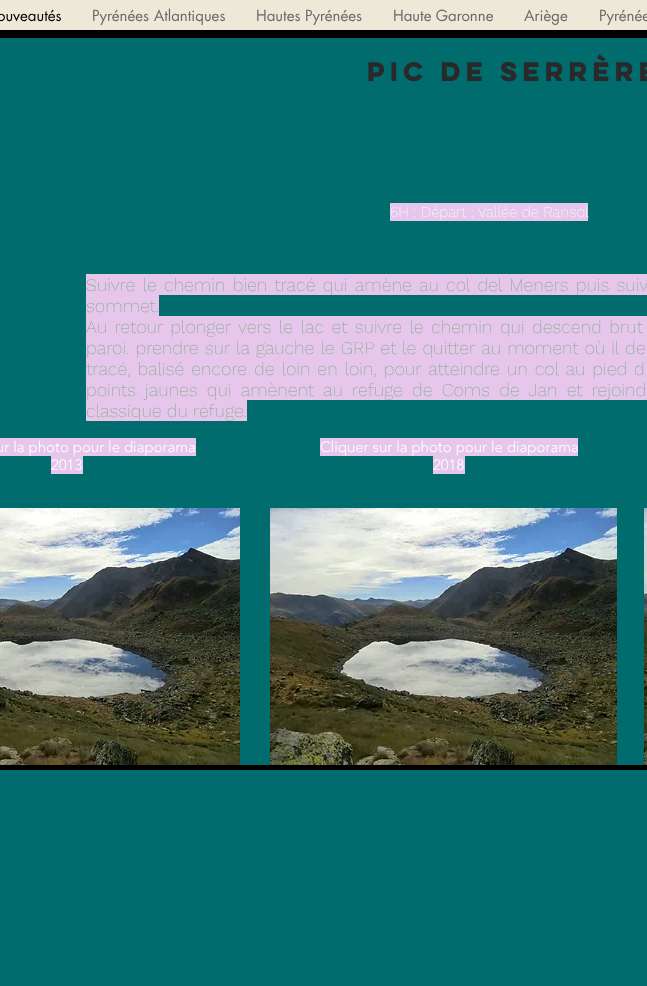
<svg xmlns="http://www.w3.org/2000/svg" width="647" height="986">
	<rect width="100%" height="100%" fill="#006C6D" />
	<rect x="0" y="0" width="647" height="30" fill="#EEE8D8" />
	<text x="-3" y="21" font-family="futura" font-size="15" fill="#000000">ouveautés</text>
	<g font-family="futura" font-size="15" fill="#696969">
		<text x="92" y="21">Pyrénées Atlantiques</text>
		<text x="256" y="21">Hautes Pyrénées</text>
		<text x="393" y="21">Haute Garonne</text>
		<text x="524" y="21">Ariège</text>
		<text x="599" y="21">Pyrénée</text>
	</g>
	<rect x="0" y="30" width="647" height="8" fill="#000000" />
	<text x="367" y="81" font-family="'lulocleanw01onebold'" font-size="24" font-weight="700" fill="#292929">Pic de Serrère</text>
	<rect x="390" y="203" width="198" height="18" fill="#E6C7EB" />
	<text x="390" y="217" font-family="Work Sans" font-size="15" font-weight="200" fill="#FFFFFF">6H : Départ : Vallée de Ransol</text>
	<rect x="86" y="274" width="561" height="21" fill="#E6C7EB" />
	<text x="86" y="291" word-spacing="2.1" font-family="Work Sans" font-size="18" font-weight="200" fill="#7FA88B">Suivre le chemin bien tracé qui amène au col del Meners puis suiv</text>
	<rect x="86" y="295" width="73" height="21" fill="#E6C7EB" />
	<text x="86" y="312" font-family="Work Sans" font-size="18" font-weight="200" fill="#7FA88B">sommet.</text>
	<rect x="86" y="316" width="561" height="84" fill="#E6C7EB" />
	<g font-family="Work Sans" font-size="18" font-weight="200" fill="#7FA88B">
		<text x="86" y="333" word-spacing="2.25">Au retour plonger vers le lac et suivre le chemin qui descend brut</text>
		<text x="86" y="354" word-spacing="0.9">paroi. prendre sur la gauche le GRP et le quitter au moment où il de</text>
		<text x="86" y="375" word-spacing="1.75">tracé, balisé encore de loin en loin, pour atteindre un col au pied d</text>
		<text x="86" y="396" word-spacing="4">points jaunes qui amènent au refuge de Coms de Jan et rejoind</text>
	</g>
	<rect x="86" y="400" width="161" height="21" fill="#E6C7EB" />
	<text x="86" y="417" font-family="Work Sans" font-size="18" font-weight="200" fill="#7FA88B">classique du refuge.</text>
	<rect x="0" y="438" width="196" height="18" fill="#E6C7EB" />
	<text x="-4" y="452" font-family="'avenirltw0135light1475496'" font-size="15" font-weight="300" fill="#FFFFFF">ur la photo pour le diaporama</text>
	<rect x="51" y="456" width="32" height="18" fill="#E6C7EB" />
	<text x="51" y="470" font-family="'avenirltw0135light1475496'" font-size="15" font-weight="300" fill="#FFFFFF">2013</text>
	<rect x="320" y="438" width="258" height="18" fill="#E6C7EB" />
	<text x="320" y="452" font-family="'avenirltw0135light1475496'" font-size="15" font-weight="300" fill="#FFFFFF">Cliquer sur la photo pour le diaporama</text>
	<rect x="433" y="456" width="32" height="18" fill="#E6C7EB" />
	<text x="433" y="470" font-family="'avenirltw0135light1475496'" font-size="15" font-weight="300" fill="#FFFFFF">2018</text>
	<image x="0" y="508" width="240" height="257" href="assets/img1.png" />
	<image x="270" y="508" width="347" height="257" href="assets/img2.png" />
	<image x="644" y="508" width="3" height="257" href="assets/img3.png" />
	<rect x="0" y="765" width="647" height="5" fill="#000000" />
</svg>
